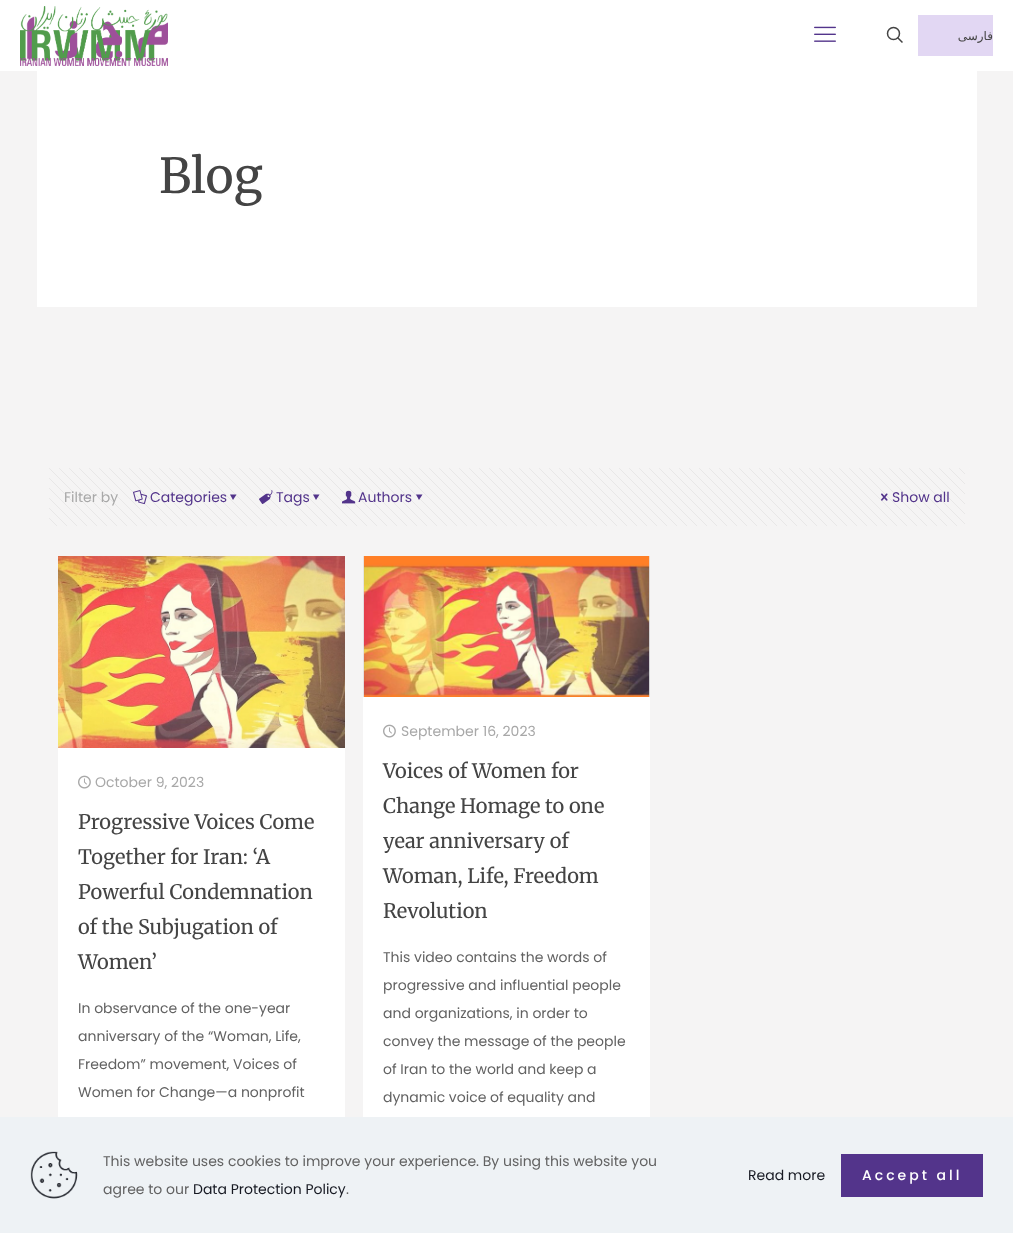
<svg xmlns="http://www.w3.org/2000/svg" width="1013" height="1233">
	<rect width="100%" height="100%" fill="#F5F4F4" />
	<rect x="0" y="0" width="1013" height="71" fill="#FFFFFF" />
	<image x="20" y="6" width="148" height="60" href="assets/img1.png" />
	<image x="814" y="26" width="22" height="16" href="assets/img2.png" />
	<circle cx="893.5" cy="33.5" r="6" fill="none" stroke="#444444" stroke-width="1.5" />
	<path d="M897.5 37.5L902.5 42.5" fill="none" stroke="#444444" stroke-width="1.5" />
	<rect x="918" y="15" width="75" height="41" fill="#E2D7F3" />
	<text x="993" y="40" font-family="DejaVu Sans" font-size="12" letter-spacing="4" direction="rtl" fill="#444444">فارسی</text>
	<rect x="37" y="71" width="940" height="236" fill="#FFFFFF" />
	<text x="159" y="193" font-family="Merriweather" font-size="48" fill="#444444">Blog</text>
	<image x="49" y="468" width="916" height="58" href="assets/img3.png" />
	<text x="64" y="502" font-family="Poppins" font-size="14" fill="#A8A8A8">Filter by</text>
	<image x="133" y="490" width="14" height="15" href="assets/img4.png" />
	<text x="150" y="502" font-family="Poppins" font-size="14" fill="#53348B">Categories</text>
	<path d="M236.5 494.5L233 500L230 494.5Z" fill="#53348B" />
	<image x="259" y="490" width="14" height="14" href="assets/img5.png" />
	<text x="276" y="502" font-family="Poppins" font-size="14" fill="#53348B">Tags</text>
	<path d="M319.5 494.5L316 500L313 494.5Z" fill="#53348B" />
	<image x="342" y="490" width="14" height="14" href="assets/img6.png" />
	<text x="358" y="502" font-family="Poppins" font-size="14" fill="#53348B">Authors</text>
	<path d="M422.5 494.5L419 500L416 494.5Z" fill="#53348B" />
	<image x="881" y="493" width="7" height="8" href="assets/img7.png" />
	<text x="892" y="502" font-family="Poppins" font-size="14" fill="#53348B">Show all</text>
	<rect x="58" y="748" width="287" height="369" fill="#FFFFFF" />
	<image x="58" y="556" width="287" height="192" href="assets/img8.png" />
	<image x="78" y="775" width="13" height="14" href="assets/img9.png" />
	<text x="95" y="787" font-family="Poppins" font-size="14" fill="#A8A8A8">October 9, 2023</text>
	<g font-family="Merriweather" font-size="20" fill="#444444">
		<text x="78" y="829">Progressive Voices Come</text>
		<text x="78" y="864">Together for Iran: ‘A</text>
		<text x="78" y="899">Powerful Condemnation</text>
		<text x="78" y="934">of the Subjugation of</text>
		<text x="78" y="969">Women’</text>
	</g>
	<g font-family="Poppins" font-size="14" fill="#626262">
		<text x="78" y="1013">In observance of the one-year</text>
		<text x="78" y="1041">anniversary of the “Woman, Life,</text>
		<text x="78" y="1069">Freedom” movement, Voices of</text>
		<text x="78" y="1097">Women for Change—a nonprofit</text>
	</g>
	<rect x="363" y="697" width="287" height="420" fill="#FFFFFF" />
	<image x="363" y="556" width="287" height="141" href="assets/img10.png" />
	<image x="383" y="724" width="13" height="14" href="assets/img9.png" />
	<text x="401" y="736" font-family="Poppins" font-size="14" fill="#A8A8A8">September 16, 2023</text>
	<g font-family="Merriweather" font-size="20" fill="#444444">
		<text x="383" y="778">Voices of Women for</text>
		<text x="383" y="813">Change Homage to one</text>
		<text x="383" y="848">year anniversary of</text>
		<text x="383" y="883">Woman, Life, Freedom</text>
		<text x="383" y="918">Revolution</text>
	</g>
	<g font-family="Poppins" font-size="14" fill="#626262">
		<text x="383" y="962">This video contains the words of</text>
		<text x="383" y="990">progressive and influential people</text>
		<text x="383" y="1018">and organizations, in order to</text>
		<text x="383" y="1046">convey the message of the people</text>
		<text x="383" y="1074">of Iran to the world and keep a</text>
		<text x="383" y="1102">dynamic voice of equality and</text>
	</g>
	<rect x="0" y="1117" width="1013" height="116" fill="#EEF2F5" />
	<image x="30" y="1151" width="48" height="48" href="assets/img11.png" />
	<g font-family="Poppins" font-size="14" fill="#626262">
		<text x="103" y="1166">This website uses cookies to improve your experience. By using this website you</text>
		<text x="103" y="1194">agree to our</text>
	</g>
	<text x="193" y="1194" font-family="Poppins" font-size="14" fill="#161922">Data Protection Policy</text>
	<text x="346" y="1194" font-family="Poppins" font-size="14" fill="#626262">.</text>
	<text x="748" y="1180" font-family="Poppins" font-size="14" fill="#161922">Read more</text>
	<rect x="841" y="1154" width="142" height="43" fill="#53348B" />
	<text x="862" y="1180" font-family="Poppins" font-size="14" font-weight="500" letter-spacing="3" fill="#FFFFFF">Accept all</text>
</svg>
